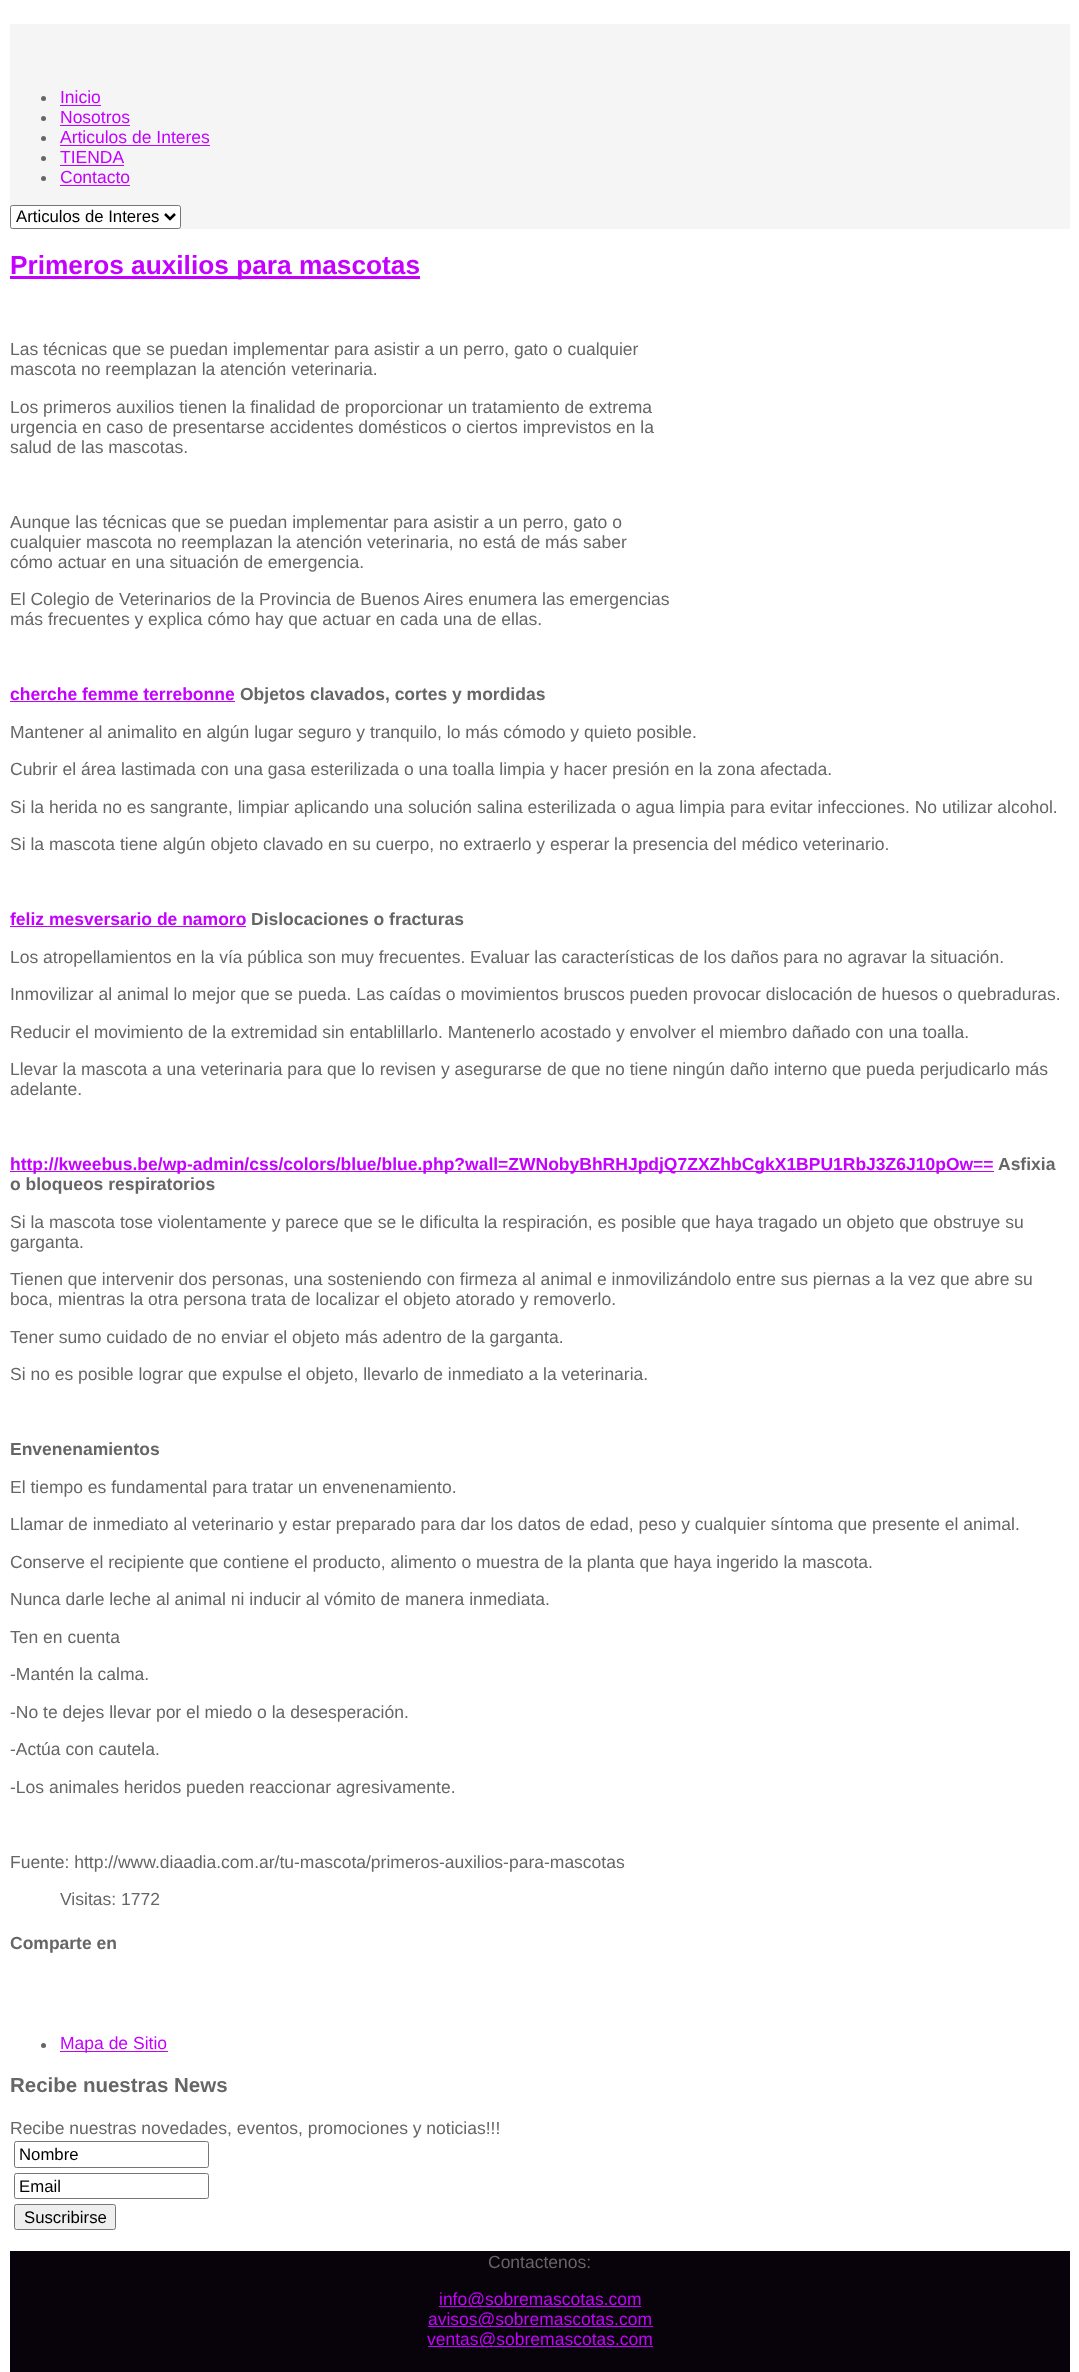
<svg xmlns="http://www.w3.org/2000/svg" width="1079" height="2372">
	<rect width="100%" height="100%" fill="#FFFFFF" />
	<rect x="10" y="24" width="1060" height="205" fill="#F5F5F5" />
	<circle cx="43.5" cy="98.5" r="2.5" fill="#666666" />
	<text x="60" y="103" font-family="Liberation Sans" font-size="17.5" fill="#C400FF">Inicio</text>
	<rect x="60" y="105" width="41" height="1" fill="#C400FF" />
	<circle cx="43.5" cy="118.5" r="2.5" fill="#666666" />
	<text x="60" y="123" font-family="Liberation Sans" font-size="17.5" fill="#C400FF">Nosotros</text>
	<rect x="60" y="125" width="70" height="1" fill="#C400FF" />
	<circle cx="43.5" cy="138.5" r="2.5" fill="#666666" />
	<text x="60" y="143" font-family="Liberation Sans" font-size="17.5" fill="#C400FF">Articulos de Interes</text>
	<rect x="60" y="145" width="150" height="1" fill="#C400FF" />
	<circle cx="43.5" cy="158.5" r="2.5" fill="#666666" />
	<text x="60" y="163" font-family="Liberation Sans" font-size="17.5" fill="#C400FF">TIENDA</text>
	<rect x="60" y="165" width="64" height="1" fill="#C400FF" />
	<circle cx="43.5" cy="178.5" r="2.5" fill="#666666" />
	<text x="60" y="183" font-family="Liberation Sans" font-size="17.5" fill="#C400FF">Contacto</text>
	<rect x="60" y="185" width="70" height="1" fill="#C400FF" />
	<rect x="10.5" y="205.5" width="170" height="23" rx="2" fill="#FFFFFF" stroke="#767676" />
	<path d="M165 214L170 219L175 214" fill="none" stroke="#000000" stroke-width="2.5" />
	<text x="16" y="222" font-family="Liberation Sans" font-size="16.75" fill="#000000">Articulos de Interes</text>
	<rect x="10" y="276" width="410" height="3" fill="#C400FF" />
	<text x="10" y="274" font-family="Liberation Sans" font-size="26.25" font-weight="700" fill="#C400FF">Primeros auxilios para mascotas</text>
	<g font-family="Liberation Sans" font-size="17.5" fill="#666666">
		<text x="10" y="355">Las técnicas que se puedan implementar para asistir a un perro, gato o cualquier</text>
		<text x="10" y="375">mascota no reemplazan la atención veterinaria.</text>
		<text x="10" y="413">Los primeros auxilios tienen la finalidad de proporcionar un tratamiento de extrema</text>
		<text x="10" y="433">urgencia en caso de presentarse accidentes domésticos o ciertos imprevistos en la</text>
		<text x="10" y="453">salud de las mascotas.</text>
		<text x="10" y="528">Aunque las técnicas que se puedan implementar para asistir a un perro, gato o</text>
		<text x="10" y="548">cualquier mascota no reemplazan la atención veterinaria, no está de más saber</text>
		<text x="10" y="568">cómo actuar en una situación de emergencia.</text>
		<text x="10" y="605">El Colegio de Veterinarios de la Provincia de Buenos Aires enumera las emergencias</text>
		<text x="10" y="625">más frecuentes y explica cómo hay que actuar en cada una de ellas.</text>
	</g>
	<text x="10" y="700" font-family="Liberation Sans" font-size="17.5" font-weight="700" fill="#C400FF">cherche femme terrebonne</text>
	<rect x="10" y="701" width="225" height="1" fill="#C400FF" />
	<text x="240" y="700" font-family="Liberation Sans" font-size="17.5" font-weight="700" fill="#666666">Objetos clavados, cortes y mordidas</text>
	<g font-family="Liberation Sans" font-size="17.5" fill="#666666">
		<text x="10" y="738">Mantener al animalito en algún lugar seguro y tranquilo, lo más cómodo y quieto posible.</text>
		<text x="10" y="775">Cubrir el área lastimada con una gasa esterilizada o una toalla limpia y hacer presión en la zona afectada.</text>
		<text x="10" y="813">Si la herida no es sangrante, limpiar aplicando una solución salina esterilizada o agua limpia para evitar infecciones. No utilizar alcohol.</text>
		<text x="10" y="850">Si la mascota tiene algún objeto clavado en su cuerpo, no extraerlo y esperar la presencia del médico veterinario.</text>
	</g>
	<text x="10" y="925" font-family="Liberation Sans" font-size="17.5" font-weight="700" fill="#C400FF">feliz mesversario de namoro</text>
	<rect x="10" y="926" width="236" height="1" fill="#C400FF" />
	<text x="251" y="925" font-family="Liberation Sans" font-size="17.5" font-weight="700" fill="#666666">Dislocaciones o fracturas</text>
	<g font-family="Liberation Sans" font-size="17.5" fill="#666666">
		<text x="10" y="963">Los atropellamientos en la vía pública son muy frecuentes. Evaluar las características de los daños para no agravar la situación.</text>
		<text x="10" y="1000">Inmovilizar al animal lo mejor que se pueda. Las caídas o movimientos bruscos pueden provocar dislocación de huesos o quebraduras.</text>
		<text x="10" y="1038">Reducir el movimiento de la extremidad sin entablillarlo. Mantenerlo acostado y envolver el miembro dañado con una toalla.</text>
		<text x="10" y="1075">Llevar la mascota a una veterinaria para que lo revisen y asegurarse de que no tiene ningún daño interno que pueda perjudicarlo más</text>
		<text x="10" y="1095">adelante.</text>
	</g>
	<rect x="10" y="1171" width="984" height="1" fill="#C400FF" />
	<text x="10" y="1170" font-family="Liberation Sans" font-size="17.5" font-weight="700" fill="#C400FF">http://kweebus.be/wp-admin/css/colors/blue/blue.php?wall=ZWNobyBhRHJpdjQ7ZXZhbCgkX1BPU1RbJ3Z6J10pOw==</text>
	<g font-family="Liberation Sans" font-size="17.5" font-weight="700" fill="#666666">
		<text x="998" y="1170">Asfixia</text>
		<text x="10" y="1190">o bloqueos respiratorios</text>
	</g>
	<g font-family="Liberation Sans" font-size="17.5" fill="#666666">
		<text x="10" y="1228">Si la mascota tose violentamente y parece que se le dificulta la respiración, es posible que haya tragado un objeto que obstruye su</text>
		<text x="10" y="1248">garganta.</text>
		<text x="10" y="1285">Tienen que intervenir dos personas, una sosteniendo con firmeza al animal e inmovilizándolo entre sus piernas a la vez que abre su</text>
		<text x="10" y="1305">boca, mientras la otra persona trata de localizar el objeto atorado y removerlo.</text>
		<text x="10" y="1343">Tener sumo cuidado de no enviar el objeto más adentro de la garganta.</text>
		<text x="10" y="1380">Si no es posible lograr que expulse el objeto, llevarlo de inmediato a la veterinaria.</text>
	</g>
	<text x="10" y="1455" font-family="Liberation Sans" font-size="17.5" font-weight="700" fill="#666666">Envenenamientos</text>
	<g font-family="Liberation Sans" font-size="17.5" fill="#666666">
		<text x="10" y="1493">El tiempo es fundamental para tratar un envenenamiento.</text>
		<text x="10" y="1530">Llamar de inmediato al veterinario y estar preparado para dar los datos de edad, peso y cualquier síntoma que presente el animal.</text>
		<text x="10" y="1568">Conserve el recipiente que contiene el producto, alimento o muestra de la planta que haya ingerido la mascota.</text>
		<text x="10" y="1605">Nunca darle leche al animal ni inducir al vómito de manera inmediata.</text>
		<text x="10" y="1643">Ten en cuenta</text>
		<text x="10" y="1680">-Mantén la calma.</text>
		<text x="10" y="1718">-No te dejes llevar por el miedo o la desesperación.</text>
		<text x="10" y="1755">-Actúa con cautela.</text>
		<text x="10" y="1793">-Los animales heridos pueden reaccionar agresivamente.</text>
		<text x="10" y="1868">Fuente: http://www.diaadia.com.ar/tu-mascota/primeros-auxilios-para-mascotas</text>
		<text x="60" y="1905">Visitas: 1772</text>
	</g>
	<text x="10" y="1949" font-family="Liberation Sans" font-size="17.5" font-weight="700" fill="#666666">Comparte en</text>
	<circle cx="43.5" cy="2045.5" r="2.5" fill="#666666" />
	<rect x="60" y="2051" width="108" height="1" fill="#C400FF" />
	<text x="60" y="2049" font-family="Liberation Sans" font-size="17.5" fill="#C400FF">Mapa de Sitio</text>
	<text x="10" y="2092" font-family="Liberation Sans" font-size="20.5" font-weight="700" fill="#666666">Recibe nuestras News</text>
	<text x="10" y="2134" font-family="Liberation Sans" font-size="17.5" fill="#666666">Recibe nuestras novedades, eventos, promociones y noticias!!!</text>
	<rect x="14.5" y="2141.5" width="194" height="26" rx="2" fill="none" stroke="#767676" />
	<text x="19" y="2160" font-family="Liberation Sans" font-size="16.75" fill="#000000">Nombre</text>
	<rect x="14.5" y="2173.5" width="194" height="25" rx="2" fill="none" stroke="#767676" />
	<text x="19" y="2192" font-family="Liberation Sans" font-size="16.75" fill="#000000">Email</text>
	<rect x="14.5" y="2204.5" width="101" height="25" rx="2" fill="#EFEFEF" stroke="#767676" />
	<text x="24" y="2223" font-family="Liberation Sans" font-size="16.75" fill="#000000">Suscribirse</text>
	<rect x="10" y="2251" width="1060" height="121" fill="#08020A" />
	<text x="488" y="2268" font-family="Liberation Sans" font-size="17.5" fill="#666666">Contactenos:</text>
	<rect x="439" y="2306" width="202" height="1" fill="#C400FF" />
	<text x="439" y="2305" font-family="Liberation Sans" font-size="17.5" fill="#C400FF">info@sobremascotas.com</text>
	<rect x="428" y="2326" width="225" height="1" fill="#C400FF" />
	<text x="428" y="2325" font-family="Liberation Sans" font-size="17.5" fill="#C400FF">avisos@sobremascotas.com</text>
	<rect x="428" y="2346" width="225" height="1" fill="#C400FF" />
	<text x="427" y="2345" font-family="Liberation Sans" font-size="17.5" fill="#C400FF">ventas@sobremascotas.com</text>
</svg>
